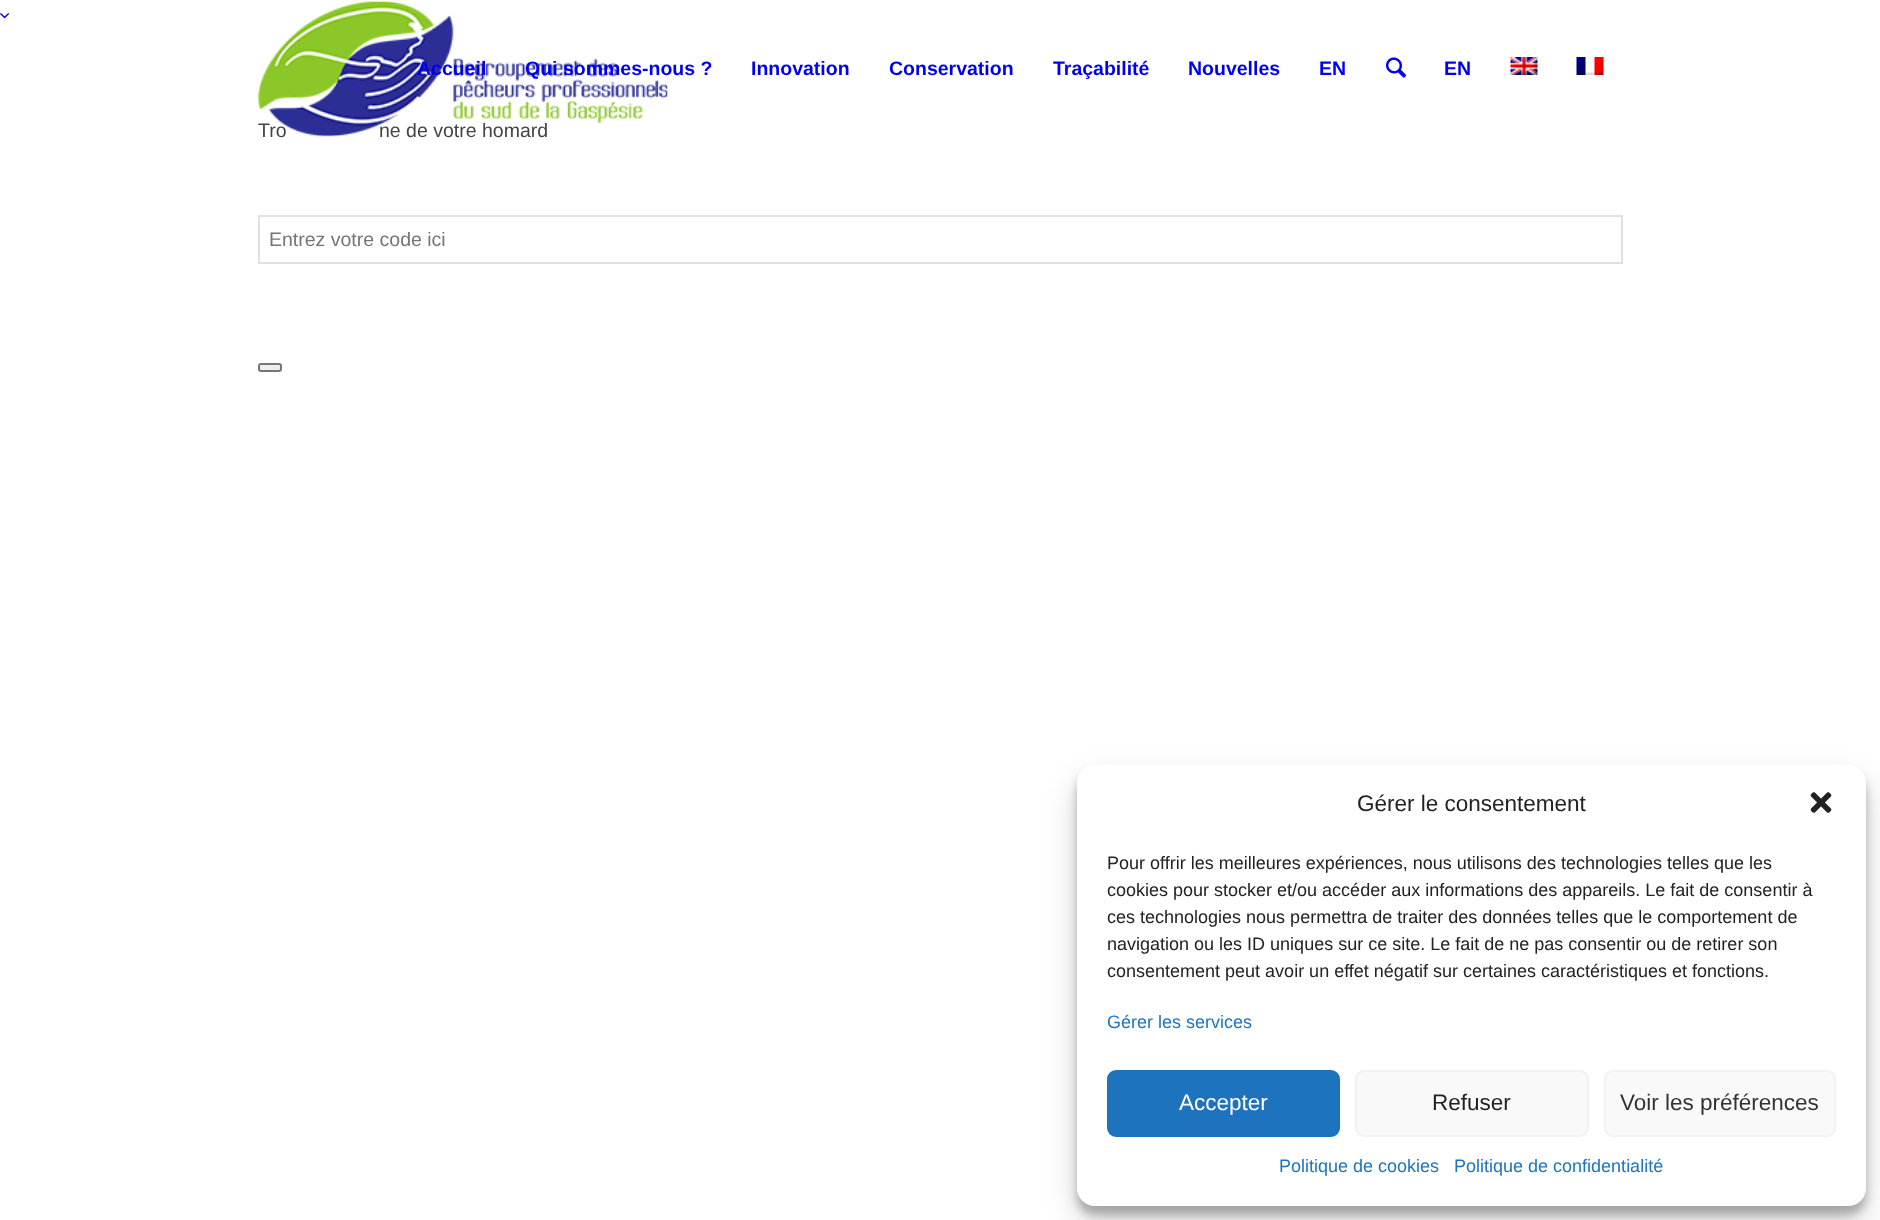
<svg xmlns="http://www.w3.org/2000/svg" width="1880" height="1220">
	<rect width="100%" height="100%" fill="#FFFFFF" />
	<image x="0" y="13" width="9" height="6" href="assets/img1.png" />
	<g font-family="Liberation Sans" font-size="19.5" fill="#444444">
		<text x="258" y="137">Tro</text>
		<text x="379" y="137">ne de votre homard</text>
	</g>
	<image x="258" y="1" width="410" height="136" href="assets/img2.png" />
	<g font-family="Liberation Sans" font-size="19.5" font-weight="700" fill="#0000EE">
		<text x="417" y="75">Accueil</text>
		<text x="525" y="75">Qui sommes-nous ?</text>
		<text x="751" y="75">Innovation</text>
		<text x="889" y="75">Conservation</text>
		<text x="1053" y="75">Traçabilité</text>
		<text x="1188" y="75">Nouvelles</text>
		<text x="1319" y="75">EN</text>
	</g>
	<image x="1386" y="57" width="21" height="21" href="assets/img3.png" />
	<text x="1444" y="75" font-family="Liberation Sans" font-size="19.5" font-weight="700" fill="#0000EE">EN</text>
	<image x="1510" y="57" width="28" height="18" href="assets/img4.png" />
	<image x="1576" y="57" width="28" height="18" href="assets/img5.png" />
	<rect x="259" y="216" width="1363" height="47" fill="none" stroke="#E1E1E1" stroke-width="2" />
	<text x="269" y="246" font-family="Liberation Sans" font-size="19.5" fill="#757575">Entrez votre code ici</text>
	<rect x="259" y="364" width="22" height="7" rx="2" fill="#EFEFEF" stroke="#767676" stroke-width="2" />
	<rect x="1077" y="774" width="789" height="441" rx="18" fill="#000000" fill-opacity="0.23" filter="blur(4.5px)" />
	<rect x="1077" y="780" width="789" height="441" rx="18" fill="#000000" fill-opacity="0.19" filter="blur(15px)" />
	<rect x="1077" y="765" width="789" height="441" rx="18" fill="#FFFFFF" />
	<text x="1357" y="811" font-family="Liberation Sans" font-size="22.5" fill="#222222">Gérer le consentement</text>
	<image x="1810" y="792" width="22" height="21" href="assets/img6.png" />
	<g font-family="Liberation Sans" font-size="18" fill="#222222">
		<text x="1107" y="869">Pour offrir les meilleures expériences, nous utilisons des technologies telles que les</text>
		<text x="1107" y="896">cookies pour stocker et/ou accéder aux informations des appareils. Le fait de consentir à</text>
		<text x="1107" y="923">ces technologies nous permettra de traiter des données telles que le comportement de</text>
		<text x="1107" y="950">navigation ou les ID uniques sur ce site. Le fait de ne pas consentir ou de retirer son</text>
		<text x="1107" y="977">consentement peut avoir un effet négatif sur certaines caractéristiques et fonctions.</text>
	</g>
	<text x="1107" y="1028" font-family="Liberation Sans" font-size="18" fill="#1E73BE">Gérer les services</text>
	<rect x="1108" y="1071" width="231" height="65" rx="8" fill="#1E73BE" stroke="#1E73BE" stroke-width="2" />
	<text x="1179" y="1110" font-family="Liberation Sans" font-size="22.5" fill="#FFFFFF">Accepter</text>
	<rect x="1356" y="1071" width="232" height="65" rx="8" fill="#F9F9F9" stroke="#F2F2F2" stroke-width="2" />
	<text x="1432" y="1110" font-family="Liberation Sans" font-size="22.5" fill="#222222">Refuser</text>
	<rect x="1605" y="1071" width="230" height="65" rx="8" fill="#F9F9F9" stroke="#F2F2F2" stroke-width="2" />
	<text x="1620" y="1110" font-family="Liberation Sans" font-size="22.5" fill="#333333">Voir les préférences</text>
	<g font-family="Liberation Sans" font-size="18" fill="#1E73BE">
		<text x="1279" y="1172">Politique de cookies</text>
		<text x="1454" y="1172">Politique de confidentialité</text>
	</g>
</svg>
